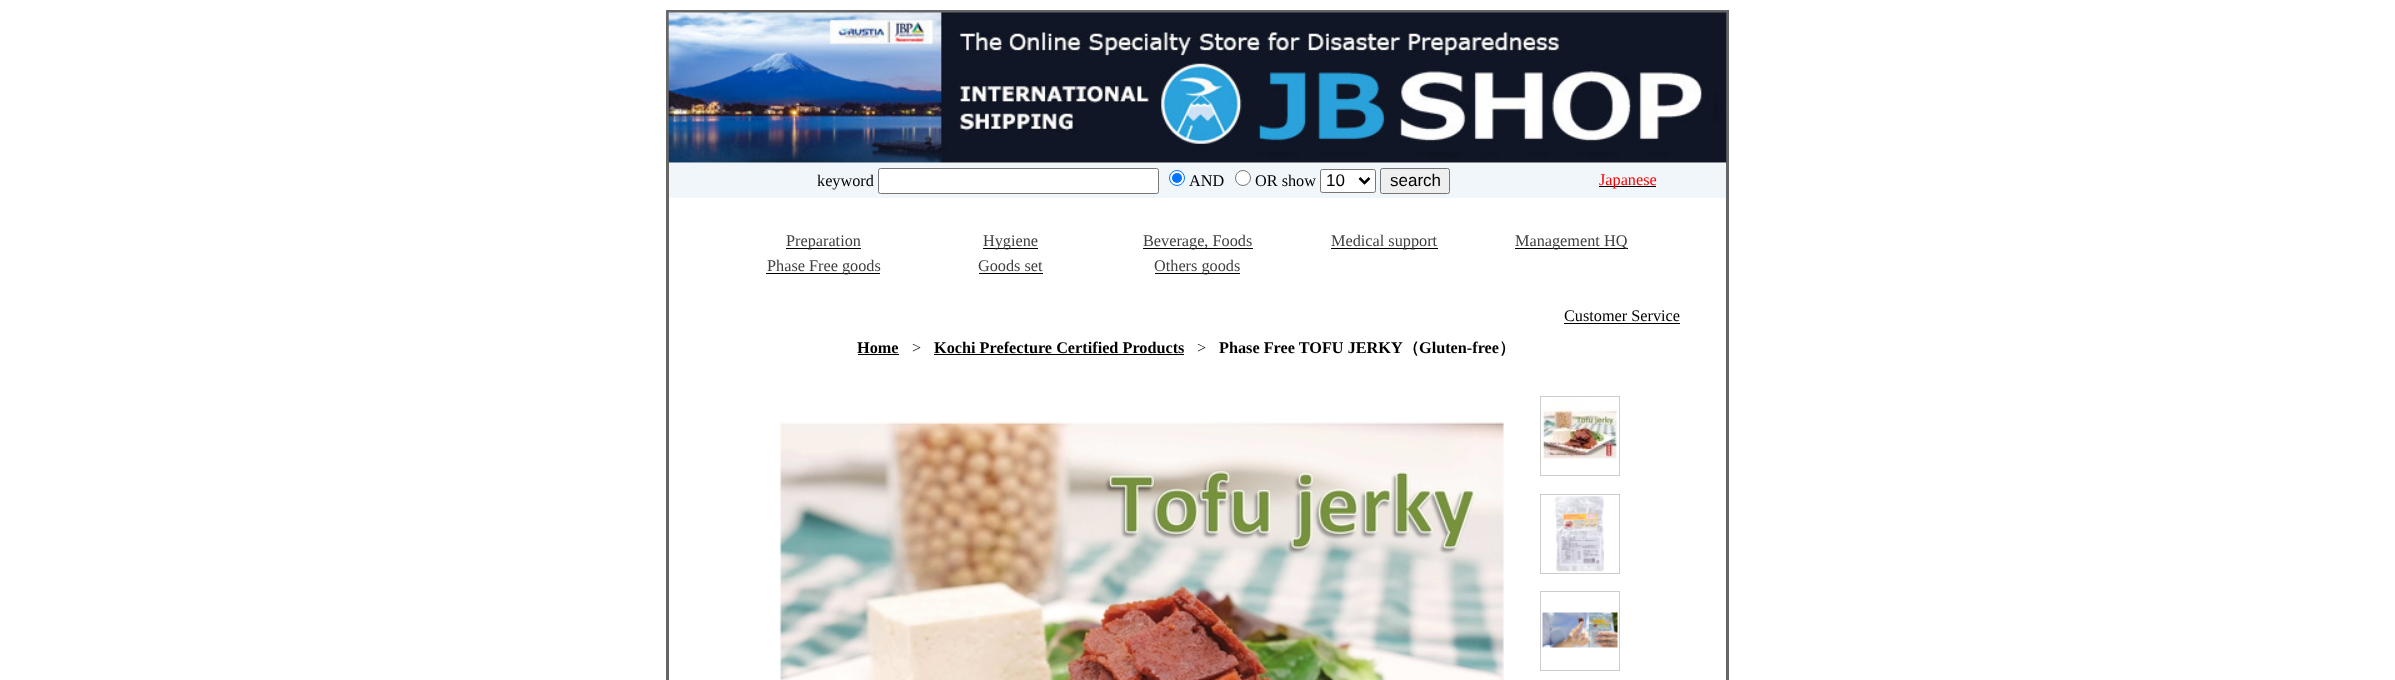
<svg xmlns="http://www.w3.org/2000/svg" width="2395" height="680">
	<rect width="100%" height="100%" fill="#FFFFFF" />
	<rect x="666" y="10" width="1063" height="3" fill="#666666" />
	<rect x="666" y="13" width="3" height="667" fill="#666666" />
	<rect x="1726" y="13" width="3" height="667" fill="#666666" />
	<image x="668" y="12" width="1059" height="151" href="assets/img1.png" />
	<rect x="669" y="163" width="1057" height="35" fill="#F0F6FA" />
	<text x="817" y="186" font-family="Liberation Serif" font-size="16.25" fill="#000000">keyword</text>
	<rect x="878.5" y="168.5" width="280" height="25" rx="2" fill="#FFFFFF" stroke="#767676" />
	<circle cx="1177" cy="178" r="7.5" fill="#FFFFFF" stroke="#0075FF" />
	<circle cx="1177" cy="178" r="5" fill="#0075FF" />
	<text x="1189" y="186" font-family="Liberation Serif" font-size="16.25" fill="#000000">AND</text>
	<circle cx="1243" cy="178" r="7.5" fill="#FFFFFF" stroke="#767676" />
	<text x="1255" y="186" font-family="Liberation Serif" font-size="16.25" fill="#000000">OR show</text>
	<rect x="1320.5" y="169.5" width="55" height="23" rx="2" fill="#FFFFFF" stroke="#767676" />
	<path d="M1359.5 178L1364.5 183L1369.5 178" fill="none" stroke="#000000" stroke-width="2.5" />
	<text x="1326" y="186" font-family="Liberation Sans" font-size="17" fill="#000000">10</text>
	<rect x="1380.5" y="168.5" width="69" height="25" rx="2" fill="#EFEFEF" stroke="#767676" />
	<text x="1390" y="186" font-family="Liberation Sans" font-size="17" fill="#000000">search</text>
	<rect x="1599" y="186" width="57" height="1" fill="#000000" />
	<text x="1599" y="185" font-family="Liberation Serif" font-size="16.25" fill="#FF0000">Japanese</text>
	<rect x="786" y="248" width="75" height="1" fill="#000000" />
	<text x="786" y="246" font-family="Liberation Serif" font-size="16.25" fill="#404040">Preparation</text>
	<rect x="983" y="248" width="55" height="1" fill="#000000" />
	<text x="983" y="246" font-family="Liberation Serif" font-size="16.25" fill="#404040">Hygiene</text>
	<rect x="1143" y="248" width="110" height="1" fill="#000000" />
	<text x="1143" y="246" font-family="Liberation Serif" font-size="16.25" fill="#404040">Beverage, Foods</text>
	<rect x="1331" y="248" width="107" height="1" fill="#000000" />
	<text x="1331" y="246" font-family="Liberation Serif" font-size="16.25" fill="#404040">Medical support</text>
	<rect x="1515" y="248" width="113" height="1" fill="#000000" />
	<text x="1515" y="246" font-family="Liberation Serif" font-size="16.25" fill="#404040">Management HQ</text>
	<rect x="766" y="273" width="114" height="1" fill="#000000" />
	<g font-family="Liberation Serif" font-size="16.25" fill="#404040">
		<text x="767" y="271">Phase Free goods</text>
		<text x="978" y="271">Goods set</text>
	</g>
	<rect x="979" y="273" width="64" height="1" fill="#000000" />
	<rect x="1155" y="273" width="85" height="1" fill="#000000" />
	<text x="1154" y="271" font-family="Liberation Serif" font-size="16.25" fill="#404040">Others goods</text>
	<text x="1564" y="321" font-family="Liberation Serif" font-size="16.25" fill="#000000">Customer Service</text>
	<rect x="1564" y="323" width="116" height="1" fill="#000000" />
	<text x="857" y="353" font-family="Liberation Serif" font-size="16.25" font-weight="700" fill="#000000">Home</text>
	<rect x="858" y="354" width="41" height="1" fill="#000000" />
	<text x="912" y="353" font-family="Liberation Serif" font-size="16.25" fill="#000000">&gt;</text>
	<text x="934" y="353" font-family="Liberation Serif" font-size="16.25" font-weight="700" fill="#000000">Kochi Prefecture Certified Products</text>
	<rect x="934" y="354" width="250" height="1" fill="#000000" />
	<text x="1197" y="353" font-family="Liberation Serif" font-size="16.25" fill="#000000">&gt;</text>
	<text x="1219" y="353" font-family="Liberation Serif" font-size="16.25" font-weight="700" fill="#000000">Phase Free TOFU JERKY</text>
	<text x="1403" y="353" font-family="WenQuanYi Zen Hei" font-size="16.25" font-weight="700" fill="#000000">（</text>
	<text x="1419" y="353" font-family="Liberation Serif" font-size="16.25" font-weight="700" fill="#000000">Gluten-free</text>
	<text x="1499" y="353" font-family="WenQuanYi Zen Hei" font-size="16.25" font-weight="700" fill="#000000">）</text>
	<image x="779" y="420" width="726" height="260" href="assets/img2.png" />
	<rect x="1540.5" y="396.5" width="79" height="79" fill="none" stroke="#CCCCCC" />
	<image x="1542" y="399" width="76" height="60" href="assets/img3.png" />
	<rect x="1540.5" y="494.5" width="79" height="79" fill="none" stroke="#CCCCCC" />
	<image x="1555" y="496" width="49" height="76" href="assets/img4.png" />
	<rect x="1540.5" y="591.5" width="79" height="79" fill="none" stroke="#CCCCCC" />
	<image x="1542" y="612" width="76" height="36" href="assets/img5.png" />
</svg>
